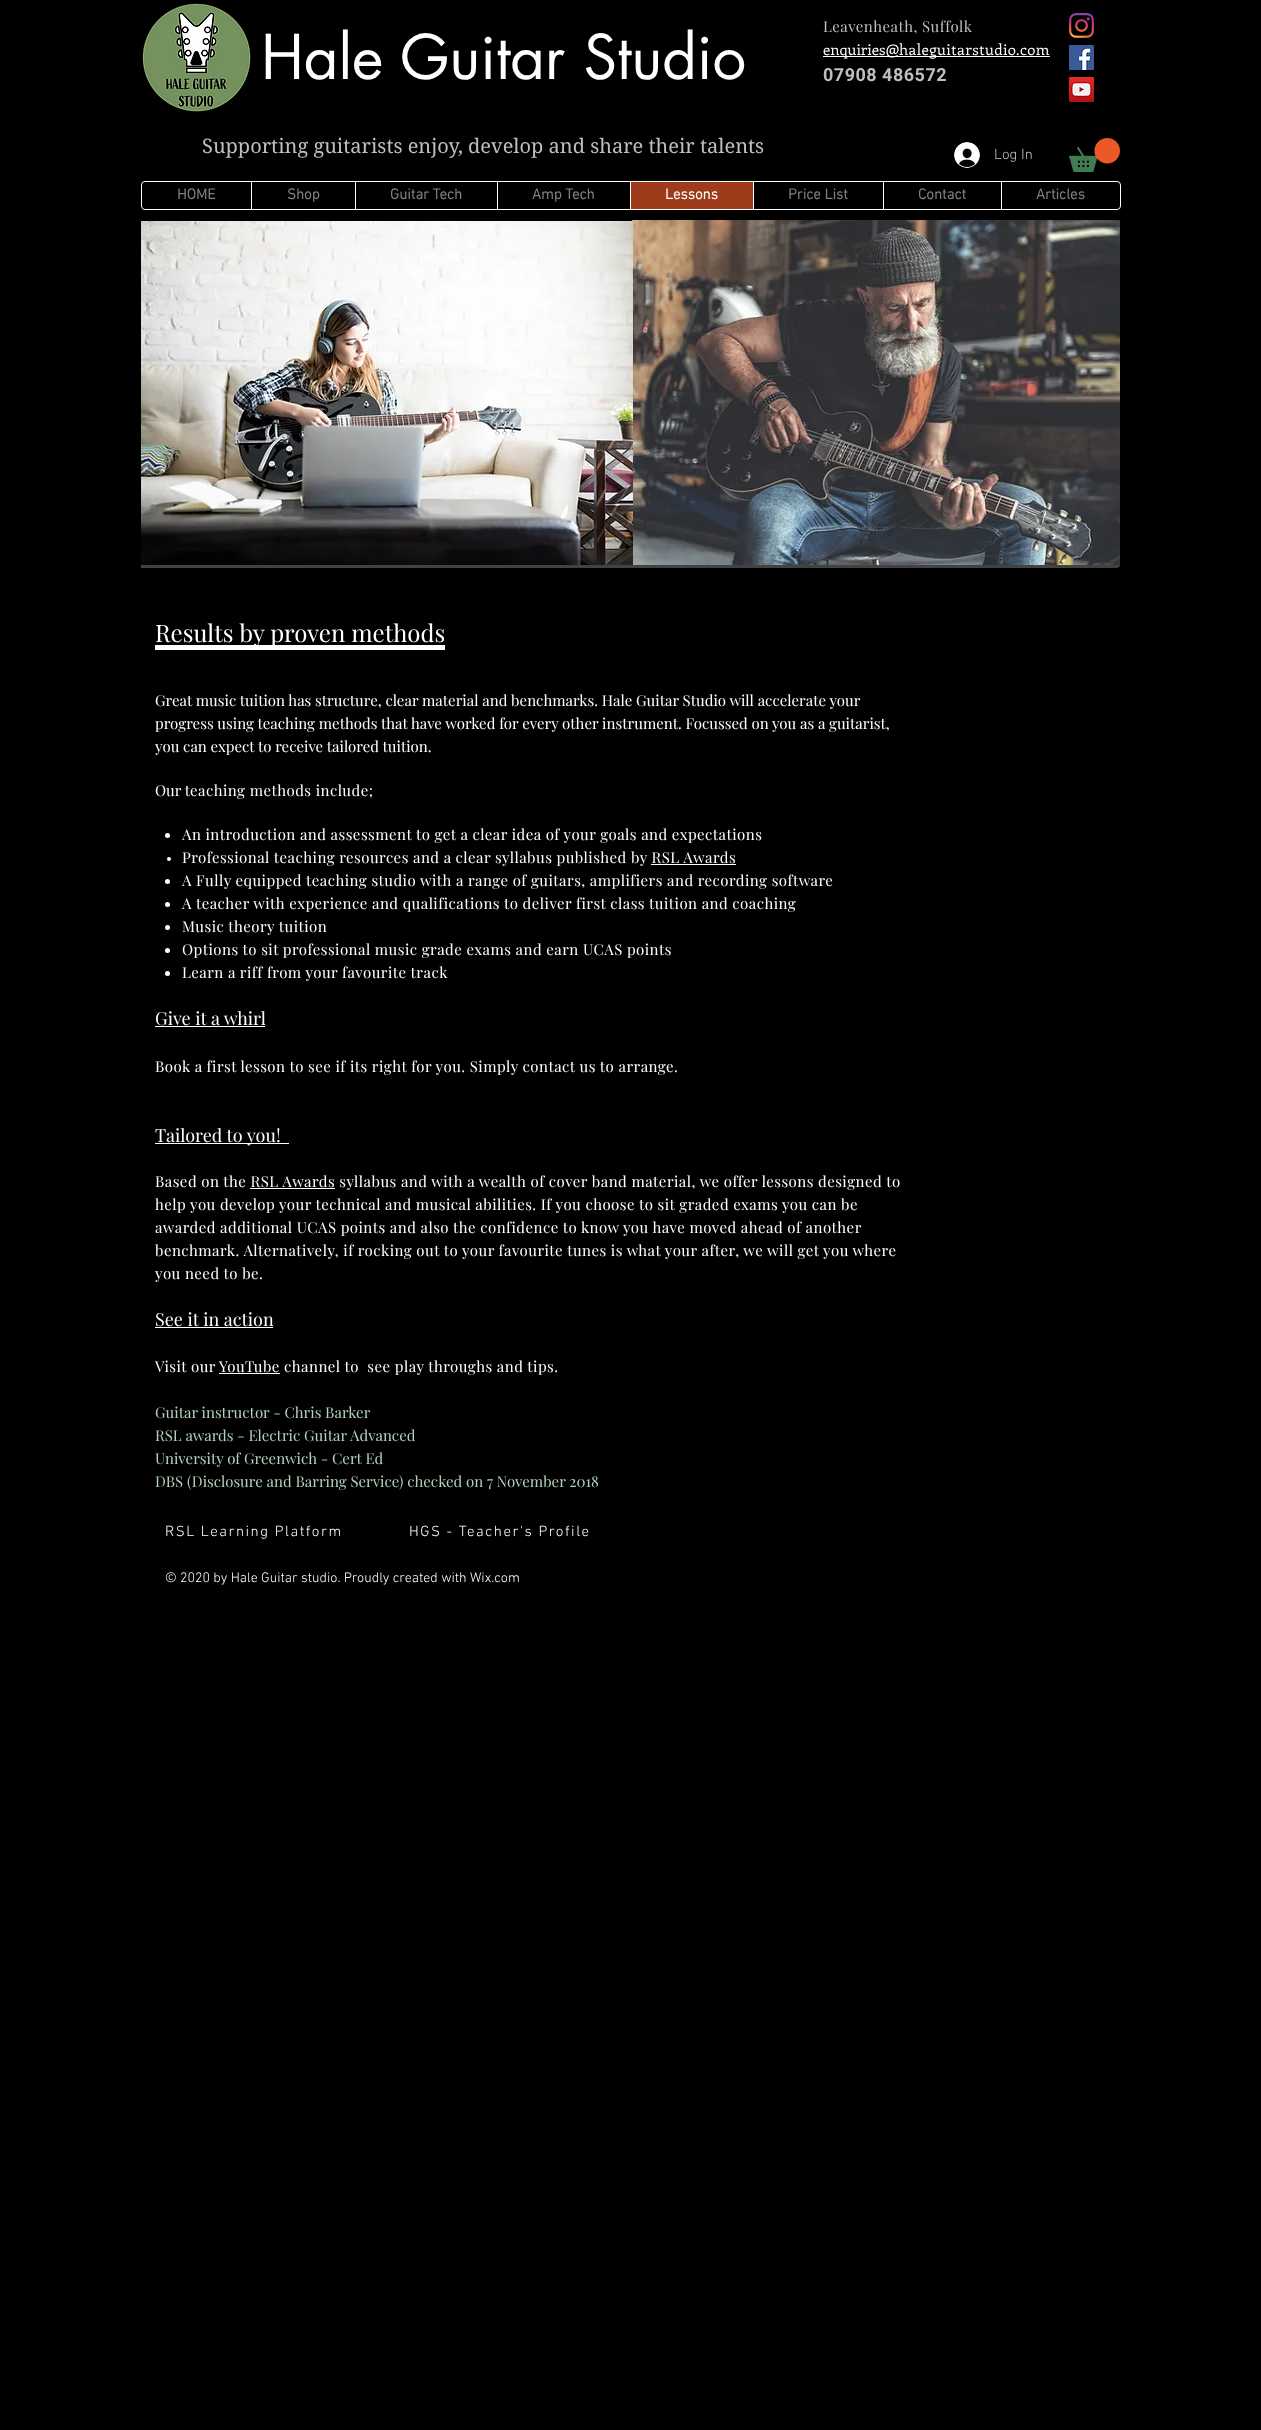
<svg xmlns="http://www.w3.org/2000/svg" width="1261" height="2430">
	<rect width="100%" height="100%" fill="#000000" />
	<image x="142" y="3" width="109" height="109" href="assets/img1.png" />
	<text x="261" y="79" font-family="futura" font-size="60" fill="#FFFFFF">Hale Guitar Studio</text>
	<text x="823" y="32" font-family="Playfair Display" font-size="15" letter-spacing="0.45" fill="#BFBFBF">Leavenheath, Suffolk</text>
	<rect x="823" y="56" width="227" height="1" fill="#FFFFFF" />
	<text x="823" y="55" font-family="Enriqueta" font-size="15" fill="#FFFFFF">enquiries@</text>
	<text x="899" y="55" font-family="Enriqueta" font-size="15" letter-spacing="0.45" fill="#FFFFFF">haleguitarstudio.com</text>
	<text x="823" y="81" font-family="Roboto" font-size="18" font-weight="700" letter-spacing="0.5" fill="#BFBFBF">07908 486572</text>
	<image x="1069" y="13" width="25" height="25" href="assets/img2.png" />
	<image x="1069" y="45" width="25" height="25" href="assets/img3.png" />
	<image x="1069" y="77" width="25" height="25" href="assets/img4.png" />
	<text x="202" y="153" font-family="'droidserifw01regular'" font-size="20" fill="#BFBFBF">Supporting guitarists enjoy, develop and share their talents</text>
	<image x="954" y="142" width="26" height="26" href="assets/img5.png" />
	<text x="994" y="159" font-family="'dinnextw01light'" font-size="15" font-weight="300" fill="#BFBFBF">Log In</text>
	<image x="1069" y="138" width="51" height="34" href="assets/img6.png" />
	<rect x="141.5" y="181.5" width="979" height="28" rx="3.5" fill="none" stroke="#FFFFFF" />
	<text x="177" y="199" font-family="'dinnextw01light'" font-size="15" font-weight="700" fill="#808080">HOME</text>
	<rect x="251" y="182" width="1" height="27" fill="#FFFFFF" />
	<text x="287" y="199" font-family="'dinnextw01light'" font-size="15" font-weight="700" fill="#808080">Shop</text>
	<rect x="355" y="182" width="1" height="27" fill="#FFFFFF" />
	<text x="390" y="199" font-family="'dinnextw01light'" font-size="15" font-weight="700" fill="#808080">Guitar Tech</text>
	<rect x="497" y="182" width="1" height="27" fill="#FFFFFF" />
	<text x="532" y="199" font-family="'dinnextw01light'" font-size="15" font-weight="700" fill="#808080">Amp Tech</text>
	<rect x="631" y="182" width="122" height="27" fill="#9E3B1B" />
	<rect x="630" y="182" width="1" height="27" fill="#FFFFFF" />
	<text x="665" y="199" font-family="'dinnextw01light'" font-size="15" font-weight="700" fill="#FFFFFF">Lessons</text>
	<rect x="753" y="182" width="1" height="27" fill="#FFFFFF" />
	<text x="788" y="199" font-family="'dinnextw01light'" font-size="15" font-weight="700" fill="#808080">Price List</text>
	<rect x="883" y="182" width="1" height="27" fill="#FFFFFF" />
	<text x="918" y="199" font-family="'dinnextw01light'" font-size="15" font-weight="700" fill="#808080">Contact</text>
	<rect x="1001" y="182" width="1" height="27" fill="#FFFFFF" />
	<text x="1036" y="199" font-family="'dinnextw01light'" font-size="15" font-weight="700" fill="#808080">Articles</text>
	<image x="632" y="220" width="488" height="347" href="assets/img8.png" />
	<image x="141" y="221" width="492" height="344" href="assets/img7.png" />
	<rect x="141" y="565" width="977" height="3" fill="#424242" />
	<rect x="155" y="645" width="290" height="5" fill="#FFFFFF" />
	<text x="155" y="642" font-family="Playfair Display" font-size="24" fill="#FFFFFF">Results by proven methods</text>
	<g font-family="Playfair Display" font-size="15" fill="#FFFFFF">
		<text x="155" y="706">Great music tuition has structure, clear material and benchmarks. Hale Guitar Studio will accelerate your</text>
		<text x="155" y="729">progress using teaching methods that have worked for every other instrument. Focussed on you as a guitarist,</text>
		<text x="155" y="752">you can expect to receive tailored tuition.</text>
		<text x="155" y="796">Our t</text>
	</g>
	<text x="190" y="796" font-family="Playfair Display" font-size="15" letter-spacing="0.45" fill="#FFFFFF">eaching methods include;</text>
	<circle cx="167.5" cy="835.5" r="2.5" fill="#FFFFFF" />
	<text x="182" y="840" font-family="Playfair Display" font-size="15" letter-spacing="0.45" fill="#FFFFFF">An introduction and assessment to get a clear idea of your goals and expectations</text>
	<circle cx="169" cy="859" r="2" fill="#FFFFFF" />
	<text x="182" y="863" font-family="Playfair Display" font-size="15" letter-spacing="0.45" fill="#FFFFFF">Professional teaching resources and a clear syllabus published by RSL Awards</text>
	<rect x="651" y="864" width="85" height="1" fill="#FFFFFF" />
	<circle cx="167.5" cy="881.5" r="2.5" fill="#FFFFFF" />
	<text x="182" y="886" font-family="Playfair Display" font-size="15" letter-spacing="0.45" fill="#FFFFFF">A Fully equipped teaching studio with a range of guitars, amplifiers and recording software</text>
	<circle cx="167.5" cy="904.5" r="2.5" fill="#FFFFFF" />
	<text x="182" y="909" font-family="Playfair Display" font-size="15" letter-spacing="0.45" fill="#FFFFFF">A teacher with experience and qualifications to deliver first class tuition and coaching</text>
	<circle cx="167.5" cy="927.5" r="2.5" fill="#FFFFFF" />
	<text x="182" y="932" font-family="Playfair Display" font-size="15" letter-spacing="0.45" fill="#FFFFFF">Music theory tuition</text>
	<circle cx="167.5" cy="950.5" r="2.5" fill="#FFFFFF" />
	<text x="182" y="955" font-family="Playfair Display" font-size="15" letter-spacing="0.45" fill="#FFFFFF">Options to sit professional music grade exams and earn UCAS points</text>
	<circle cx="167.5" cy="973.5" r="2.5" fill="#FFFFFF" />
	<text x="182" y="978" font-family="Playfair Display" font-size="15" letter-spacing="0.45" fill="#FFFFFF">Learn a riff from your favourite track</text>
	<text x="155" y="1025" font-family="Playfair Display" font-size="18" fill="#FFFFFF">Give it a whirl</text>
	<rect x="155" y="1026" width="110" height="1" fill="#FFFFFF" />
	<text x="155" y="1072" font-family="Playfair Display" font-size="15" letter-spacing="0.45" fill="#FFFFFF">Book a first lesson to see if its right for you. Simply contact us to arrange.</text>
	<rect x="155" y="1143" width="134" height="1" fill="#FFFFFF" />
	<text x="155" y="1142" font-family="Playfair Display" font-size="18" fill="#FFFFFF">Tailored to you!</text>
	<text x="155" y="1187" font-family="Playfair Display" font-size="15" letter-spacing="0.45" fill="#FFFFFF">Based on the RSL Awards syllabus and with a wealth of cover band material, we offer lessons designed to</text>
	<rect x="250" y="1188" width="85" height="1" fill="#FFFFFF" />
	<g font-family="Playfair Display" font-size="15" letter-spacing="0.45" fill="#FFFFFF">
		<text x="155" y="1210">help you develop your technical and musical abilities. If you choose to sit graded exams you can be</text>
		<text x="155" y="1233">awarded additional UCAS points and also the confidence to know you have moved ahead of another</text>
		<text x="155" y="1256">benchmark. Alternatively, if rocking out to your favourite tunes is what your after, we will get you where</text>
		<text x="155" y="1279">you need to be.</text>
	</g>
	<text x="155" y="1326" font-family="Playfair Display" font-size="18" fill="#FFFFFF">See it in action</text>
	<rect x="155" y="1327" width="118" height="1" fill="#FFFFFF" />
	<text x="155" y="1372" font-family="Playfair Display" font-size="15" letter-spacing="0.45" fill="#FFFFFF">Visit our</text>
	<rect x="219" y="1373" width="61" height="1" fill="#FFFFFF" />
	<text x="219" y="1372" font-family="Playfair Display" font-size="15" letter-spacing="0.45" fill="#FFFFFF" xml:space="preserve">YouTube channel to  see play throughs and tips.</text>
	<g font-family="Playfair Display" font-size="15" fill="#B1D3BB">
		<text x="155" y="1418">Guitar instructor - Chris Barker</text>
		<text x="155" y="1441">RSL awards - Electric Guitar Advanced</text>
		<text x="155" y="1464">University of Greenwich - Cert Ed</text>
		<text x="155" y="1487">DBS (Disclosure and Barring Service) checked on 7 November 2018</text>
	</g>
	<g font-family="'dinnextw01light'" font-size="15" font-weight="300" letter-spacing="1.5" fill="#FFFFFF">
		<text x="165" y="1536">RSL Learning Platform</text>
		<text x="409" y="1536">HGS - Teacher's Profile</text>
	</g>
	<text x="165" y="1582" font-family="'dinnextw01light'" font-size="14" font-weight="300" fill="#FFFFFF">© 2020 by Hale Guitar studio. Proudly created with Wix.com</text>
</svg>
